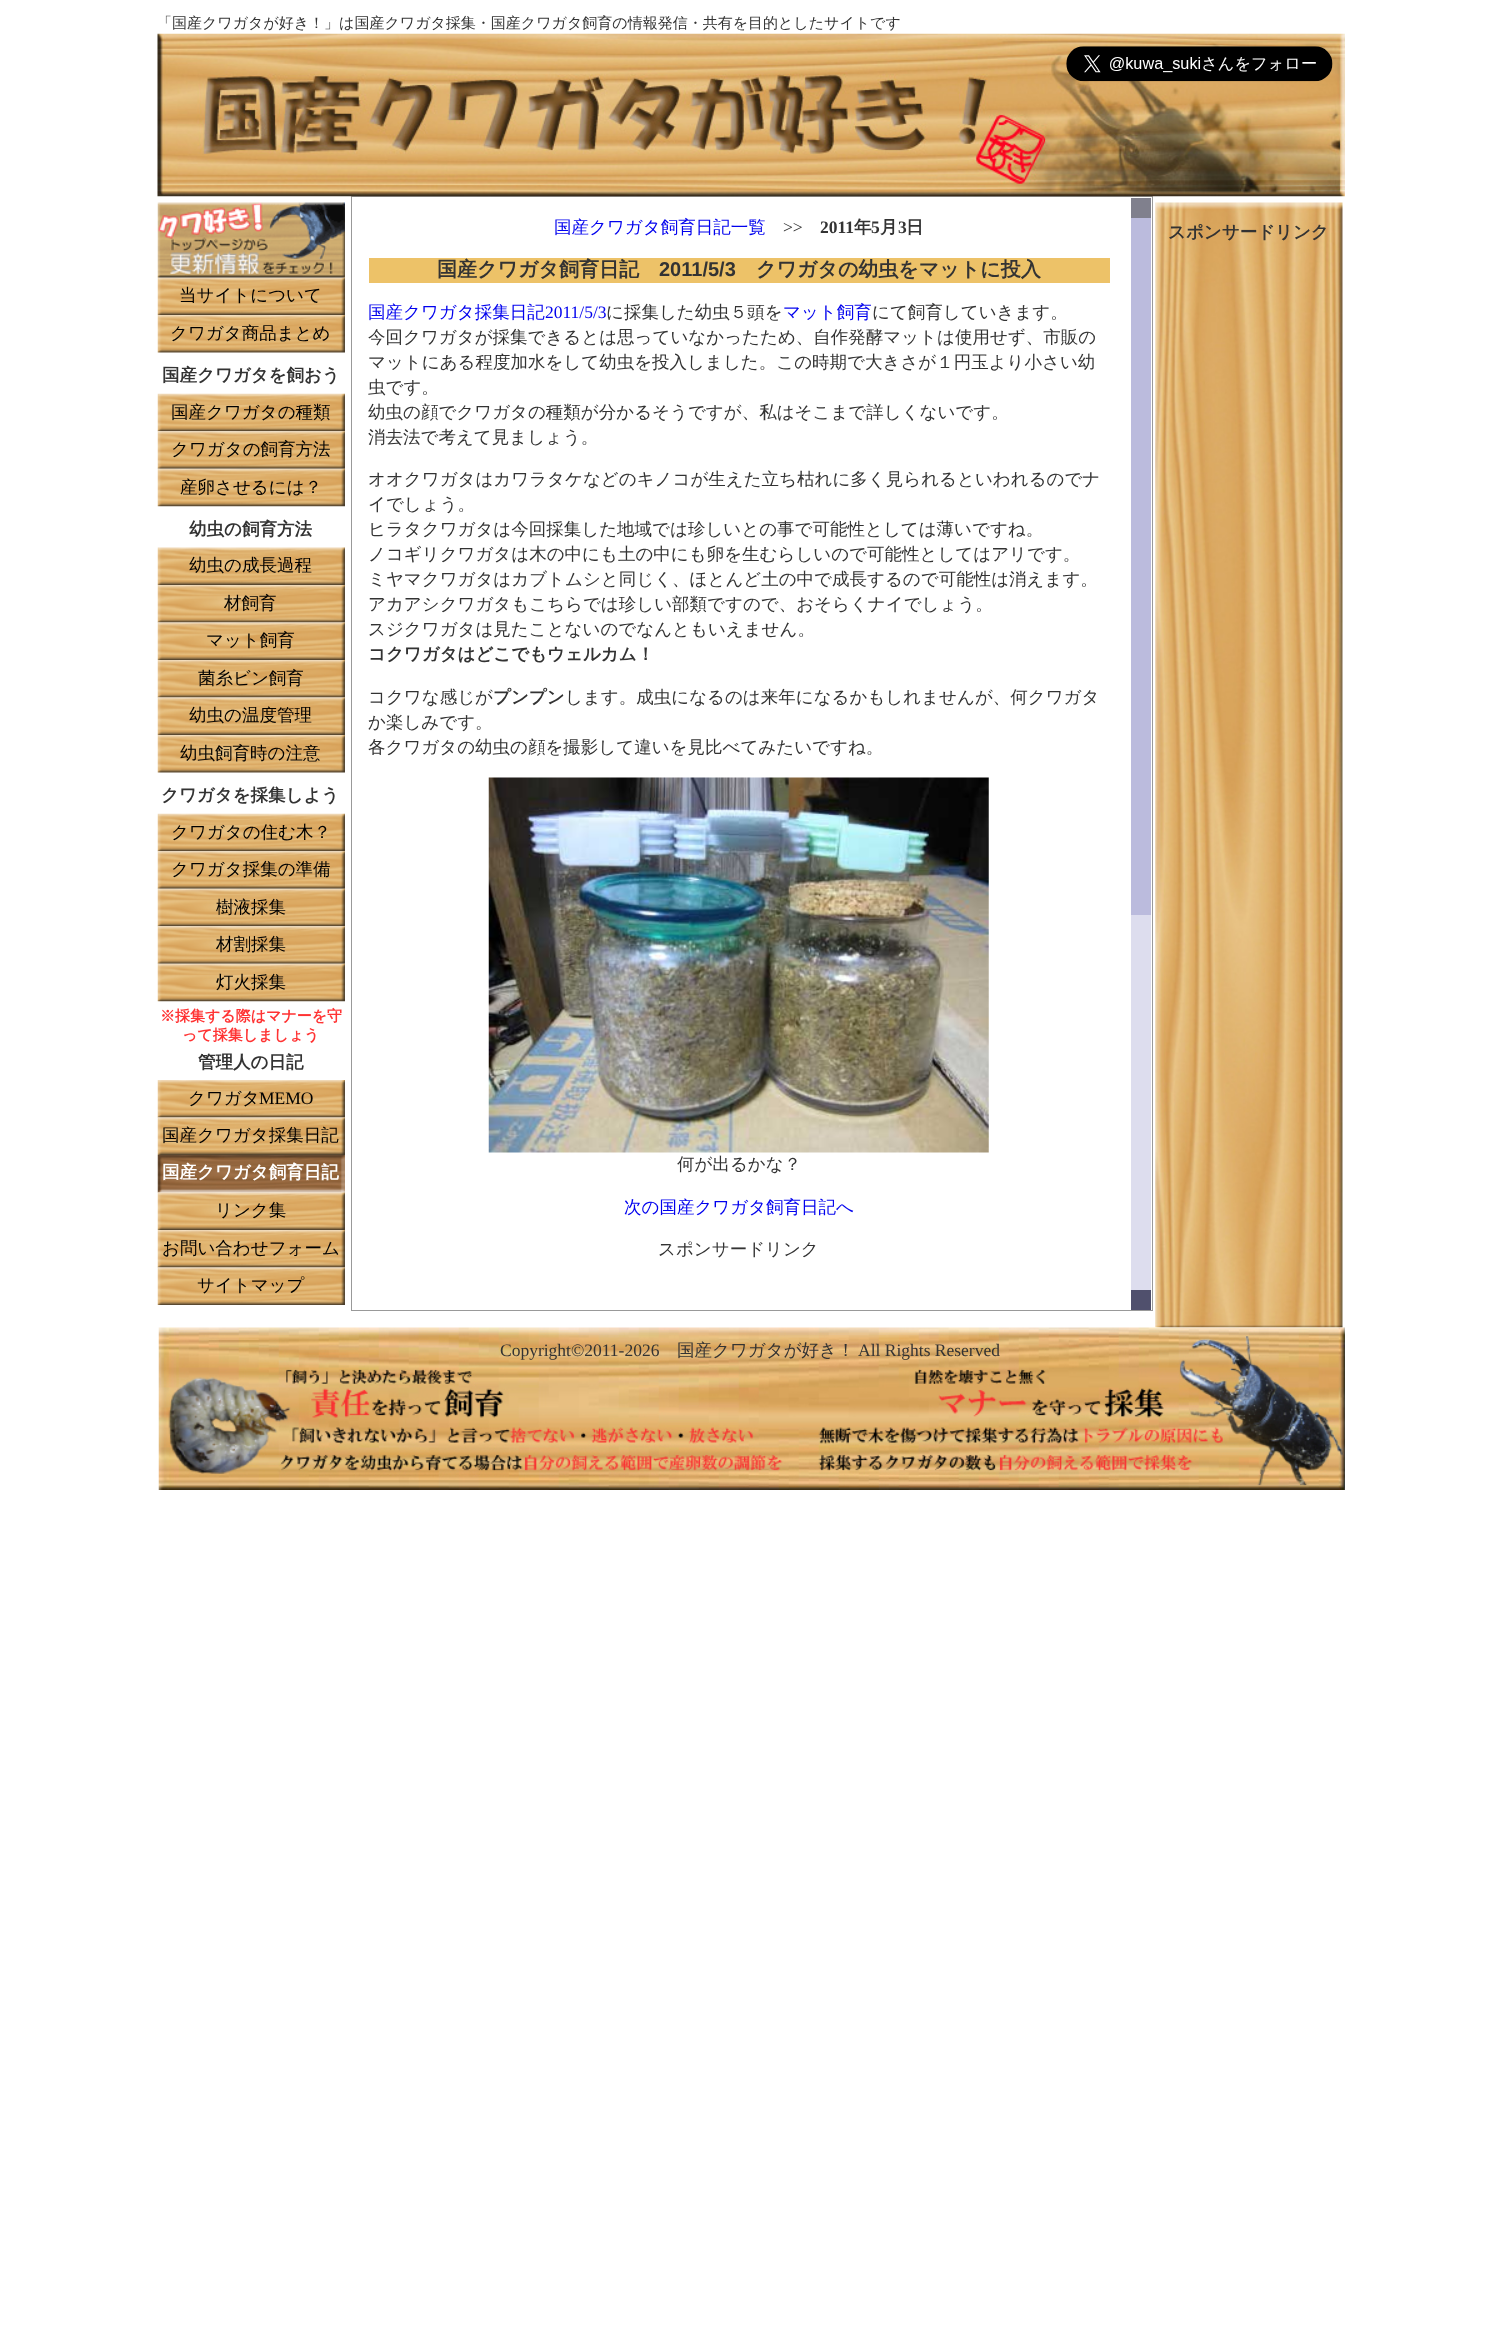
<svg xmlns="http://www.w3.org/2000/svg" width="1501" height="2328">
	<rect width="100%" height="100%" fill="#FFFFFF" />
	<text x="157" y="28" font-family="WenQuanYi Zen Hei" font-size="15" font-weight="500" fill="#333333">「国産クワガタが好き！」は国産クワガタ採集・国産クワガタ飼育の情報発信・共有を目的としたサイトです</text>
	<rect x="351.5" y="196.5" width="801" height="1114" fill="none" stroke="#999999" />
	<image x="157" y="33" width="1188" height="164" href="assets/img1.png" />
	<image x="1066" y="46" width="267" height="36" href="assets/img2.png" />
	<text x="554" y="233" font-family="WenQuanYi Zen Hei" font-size="17.5" font-weight="500" fill="#0000EE">国産クワガタ飼育日記一覧</text>
	<text x="783" y="233" font-family="Liberation Serif" font-size="17.5" fill="#333333">&gt;&gt;</text>
	<text x="820" y="233" font-family="Liberation Serif" font-size="17.5" font-weight="700" fill="#333333">2011</text>
	<text x="854" y="233" font-family="WenQuanYi Zen Hei" font-size="17.5" font-weight="700" fill="#333333">年</text>
	<text x="871" y="233" font-family="Liberation Serif" font-size="17.5" font-weight="700" fill="#333333">5</text>
	<text x="880" y="233" font-family="WenQuanYi Zen Hei" font-size="17.5" font-weight="700" fill="#333333">月</text>
	<text x="898" y="233" font-family="Liberation Serif" font-size="17.5" font-weight="700" fill="#333333">3</text>
	<text x="906" y="233" font-family="WenQuanYi Zen Hei" font-size="17.5" font-weight="700" fill="#333333">日</text>
	<rect x="369" y="258" width="741" height="25" fill="#EDC268" />
	<text x="437" y="276" font-family="WenQuanYi Zen Hei" font-size="20" font-weight="700" fill="#333333">国産クワガタ飼育日記</text>
	<text x="659" y="276" font-family="Liberation Sans" font-size="20" font-weight="700" fill="#333333">2011/5/3</text>
	<text x="756" y="276" font-family="WenQuanYi Zen Hei" font-size="20" font-weight="700" fill="#333333">クワガタの幼虫をマットに投入</text>
	<text x="368" y="318" font-family="WenQuanYi Zen Hei" font-size="17.5" font-weight="500" fill="#0000EE">国産クワガタ採集日記</text>
	<text x="545" y="318" font-family="Liberation Serif" font-size="17.5" fill="#0000EE">2011/5/3</text>
	<text x="606" y="318" font-family="WenQuanYi Zen Hei" font-size="17.5" font-weight="500" fill="#333333">に採集した幼虫５頭を</text>
	<text x="783" y="318" font-family="WenQuanYi Zen Hei" font-size="17.5" font-weight="500" fill="#0000EE">マット飼育</text>
	<g font-family="WenQuanYi Zen Hei" font-size="17.5" font-weight="500" fill="#333333">
		<text x="872" y="318">にて飼育していきます。</text>
		<text x="368" y="343">今回クワガタが採集できるとは思っていなかったため、自作発酵マットは使用せず、市販の</text>
		<text x="368" y="368">マットにある程度加水をして幼虫を投入しました。この時期で大きさが１円玉より小さい幼</text>
		<text x="368" y="393">虫です。</text>
		<text x="368" y="418">幼虫の顔でクワガタの種類が分かるそうですが、私はそこまで詳しくないです。</text>
		<text x="368" y="443">消去法で考えて見ましょう。</text>
		<text x="368" y="485">オオクワガタはカワラタケなどのキノコが生えた立ち枯れに多く見られるといわれるのでナ</text>
		<text x="368" y="510">イでしょう。</text>
		<text x="368" y="535">ヒラタクワガタは今回採集した地域では珍しいとの事で可能性としては薄いですね。</text>
		<text x="368" y="560">ノコギリクワガタは木の中にも土の中にも卵を生むらしいので可能性としてはアリです。</text>
		<text x="368" y="585">ミヤマクワガタはカブトムシと同じく、ほとんど土の中で成長するので可能性は消えます。</text>
		<text x="368" y="610">アカアシクワガタもこちらでは珍しい部類ですので、おそらくナイでしょう。</text>
		<text x="368" y="635">スジクワガタは見たことないのでなんともいえません。</text>
	</g>
	<text x="368" y="660" font-family="WenQuanYi Zen Hei" font-size="17.5" font-weight="700" fill="#333333">コクワガタはどこでもウェルカム！</text>
	<text x="368" y="703" font-family="WenQuanYi Zen Hei" font-size="17.5" font-weight="500" fill="#333333">コクワな感じが</text>
	<text x="493" y="703" font-family="WenQuanYi Zen Hei" font-size="17.5" font-weight="700" fill="#333333">プンプン</text>
	<g font-family="WenQuanYi Zen Hei" font-size="17.5" font-weight="500" fill="#333333">
		<text x="565" y="703">します。成虫になるのは来年になるかもしれませんが、何クワガタ</text>
		<text x="368" y="728">か楽しみです。</text>
		<text x="368" y="753">各クワガタの幼虫の顔を撮影して違いを見比べてみたいですね。</text>
	</g>
	<image x="488" y="777" width="501" height="376" href="assets/img3.png" />
	<text x="677" y="1170" font-family="WenQuanYi Zen Hei" font-size="17.5" font-weight="500" fill="#333333">何が出るかな？</text>
	<text x="624" y="1213" font-family="WenQuanYi Zen Hei" font-size="17.5" font-weight="500" fill="#0000EE">次の国産クワガタ飼育日記へ</text>
	<text x="658" y="1255" font-family="WenQuanYi Zen Hei" font-size="17.5" font-weight="500" fill="#333333">スポンサードリンク</text>
	<rect x="1131" y="198" width="20" height="20" fill="#80808D" />
	<rect x="1131" y="915" width="20" height="375" fill="#DDDDEE" />
	<rect x="1131" y="218" width="20" height="697" fill="#BBBBDD" />
	<rect x="1131" y="1290" width="20" height="20" fill="#50506D" />
	<image x="158" y="1327" width="1187" height="163" href="assets/img16.png" />
	<image x="1155" y="202" width="188" height="1126" href="assets/img4.png" />
	<text x="1168" y="238" font-family="WenQuanYi Zen Hei" font-size="17.5" font-weight="700" fill="#333333">スポンサードリンク</text>
	<image x="157" y="277" width="188" height="38" href="assets/img6.png" />
	<image x="157" y="202" width="188" height="76" href="assets/img5.png" />
	<text x="179" y="301" font-family="WenQuanYi Zen Hei" font-size="17.5" font-weight="500" fill="#000000">当サイトについて</text>
	<image x="157" y="315" width="188" height="38" href="assets/img7.png" />
	<text x="170" y="339" font-family="WenQuanYi Zen Hei" font-size="17.5" font-weight="500" fill="#000000">クワガタ商品まとめ</text>
	<text x="162" y="381" font-family="WenQuanYi Zen Hei" font-size="17.5" font-weight="700" fill="#333333">国産クワガタを飼おう</text>
	<image x="157" y="393" width="188" height="39" href="assets/img8.png" />
	<text x="171" y="418" font-family="WenQuanYi Zen Hei" font-size="17.5" font-weight="500" fill="#000000">国産クワガタの種類</text>
	<image x="157" y="431" width="188" height="38" href="assets/img9.png" />
	<text x="171" y="455" font-family="WenQuanYi Zen Hei" font-size="17.5" font-weight="500" fill="#000000">クワガタの飼育方法</text>
	<image x="157" y="468" width="188" height="39" href="assets/img10.png" />
	<text x="180" y="493" font-family="WenQuanYi Zen Hei" font-size="17.5" font-weight="500" fill="#000000">産卵させるには？</text>
	<text x="189" y="535" font-family="WenQuanYi Zen Hei" font-size="17.5" font-weight="700" fill="#333333">幼虫の飼育方法</text>
	<image x="157" y="547" width="188" height="38" href="assets/img11.png" />
	<text x="189" y="571" font-family="WenQuanYi Zen Hei" font-size="17.5" font-weight="500" fill="#000000">幼虫の成長過程</text>
	<image x="157" y="585" width="188" height="38" href="assets/img12.png" />
	<text x="224" y="609" font-family="WenQuanYi Zen Hei" font-size="17.5" font-weight="500" fill="#000000">材飼育</text>
	<image x="157" y="622" width="188" height="38" href="assets/img13.png" />
	<text x="206" y="646" font-family="WenQuanYi Zen Hei" font-size="17.5" font-weight="500" fill="#000000">マット飼育</text>
	<image x="157" y="660" width="188" height="38" href="assets/img7.png" />
	<text x="198" y="684" font-family="WenQuanYi Zen Hei" font-size="17.5" font-weight="500" fill="#000000">菌糸ビン飼育</text>
	<image x="157" y="697" width="188" height="38" href="assets/img13.png" />
	<text x="189" y="721" font-family="WenQuanYi Zen Hei" font-size="17.5" font-weight="500" fill="#000000">幼虫の温度管理</text>
	<image x="157" y="735" width="188" height="38" href="assets/img7.png" />
	<text x="180" y="759" font-family="WenQuanYi Zen Hei" font-size="17.5" font-weight="500" fill="#000000">幼虫飼育時の注意</text>
	<text x="161" y="801" font-family="WenQuanYi Zen Hei" font-size="17.5" font-weight="700" fill="#333333">クワガタを採集しよう</text>
	<image x="157" y="813" width="188" height="39" href="assets/img8.png" />
	<text x="171" y="838" font-family="WenQuanYi Zen Hei" font-size="17.5" font-weight="500" fill="#000000">クワガタの住む木？</text>
	<image x="157" y="851" width="188" height="38" href="assets/img9.png" />
	<text x="171" y="875" font-family="WenQuanYi Zen Hei" font-size="17.5" font-weight="500" fill="#000000">クワガタ採集の準備</text>
	<image x="157" y="888" width="188" height="39" href="assets/img10.png" />
	<text x="216" y="913" font-family="WenQuanYi Zen Hei" font-size="17.5" font-weight="500" fill="#000000">樹液採集</text>
	<image x="157" y="926" width="188" height="38" href="assets/img9.png" />
	<text x="216" y="950" font-family="WenQuanYi Zen Hei" font-size="17.5" font-weight="500" fill="#000000">材割採集</text>
	<image x="157" y="963" width="188" height="39" href="assets/img10.png" />
	<text x="216" y="988" font-family="WenQuanYi Zen Hei" font-size="17.5" font-weight="500" fill="#000000">灯火採集</text>
	<g font-family="WenQuanYi Zen Hei" font-size="15" font-weight="700" fill="#FF3333">
		<text x="160" y="1021">※採集する際はマナーを守</text>
		<text x="182" y="1040">って採集しましょう</text>
	</g>
	<text x="198" y="1068" font-family="WenQuanYi Zen Hei" font-size="17.5" font-weight="700" fill="#333333">管理人の日記</text>
	<image x="157" y="1080" width="188" height="38" href="assets/img7.png" />
	<text x="188" y="1104" font-family="WenQuanYi Zen Hei" font-size="17.5" font-weight="500" fill="#000000">クワガタ</text>
	<text x="259" y="1104" font-family="Liberation Serif" font-size="17.5" fill="#000000">MEMO</text>
	<image x="157" y="1117" width="188" height="38" href="assets/img13.png" />
	<text x="162" y="1141" font-family="WenQuanYi Zen Hei" font-size="17.5" font-weight="500" fill="#000000">国産クワガタ採集日記</text>
	<image x="157" y="1155" width="188" height="38" href="assets/img14.png" />
	<text x="162" y="1178" font-family="WenQuanYi Zen Hei" font-size="17.5" font-weight="700" fill="#FFFFFF">国産クワガタ飼育日記</text>
	<image x="157" y="1192" width="188" height="38" href="assets/img15.png" />
	<text x="215" y="1216" font-family="WenQuanYi Zen Hei" font-size="17.5" font-weight="500" fill="#000000">リンク集</text>
	<image x="157" y="1230" width="188" height="38" href="assets/img7.png" />
	<text x="162" y="1254" font-family="WenQuanYi Zen Hei" font-size="17.5" font-weight="500" fill="#000000">お問い合わせフォーム</text>
	<image x="157" y="1267" width="188" height="38" href="assets/img13.png" />
	<text x="197" y="1291" font-family="WenQuanYi Zen Hei" font-size="17.5" font-weight="500" fill="#000000">サイトマップ</text>
	<text x="500" y="1356" font-family="Liberation Serif" font-size="17.5" fill="#333333">Copyright©2011-2026</text>
	<text x="677" y="1356" font-family="WenQuanYi Zen Hei" font-size="17.5" font-weight="500" fill="#333333">国産クワガタが好き！</text>
	<text x="858" y="1356" font-family="Liberation Serif" font-size="17.5" fill="#333333">All Rights Reserved</text>
</svg>
